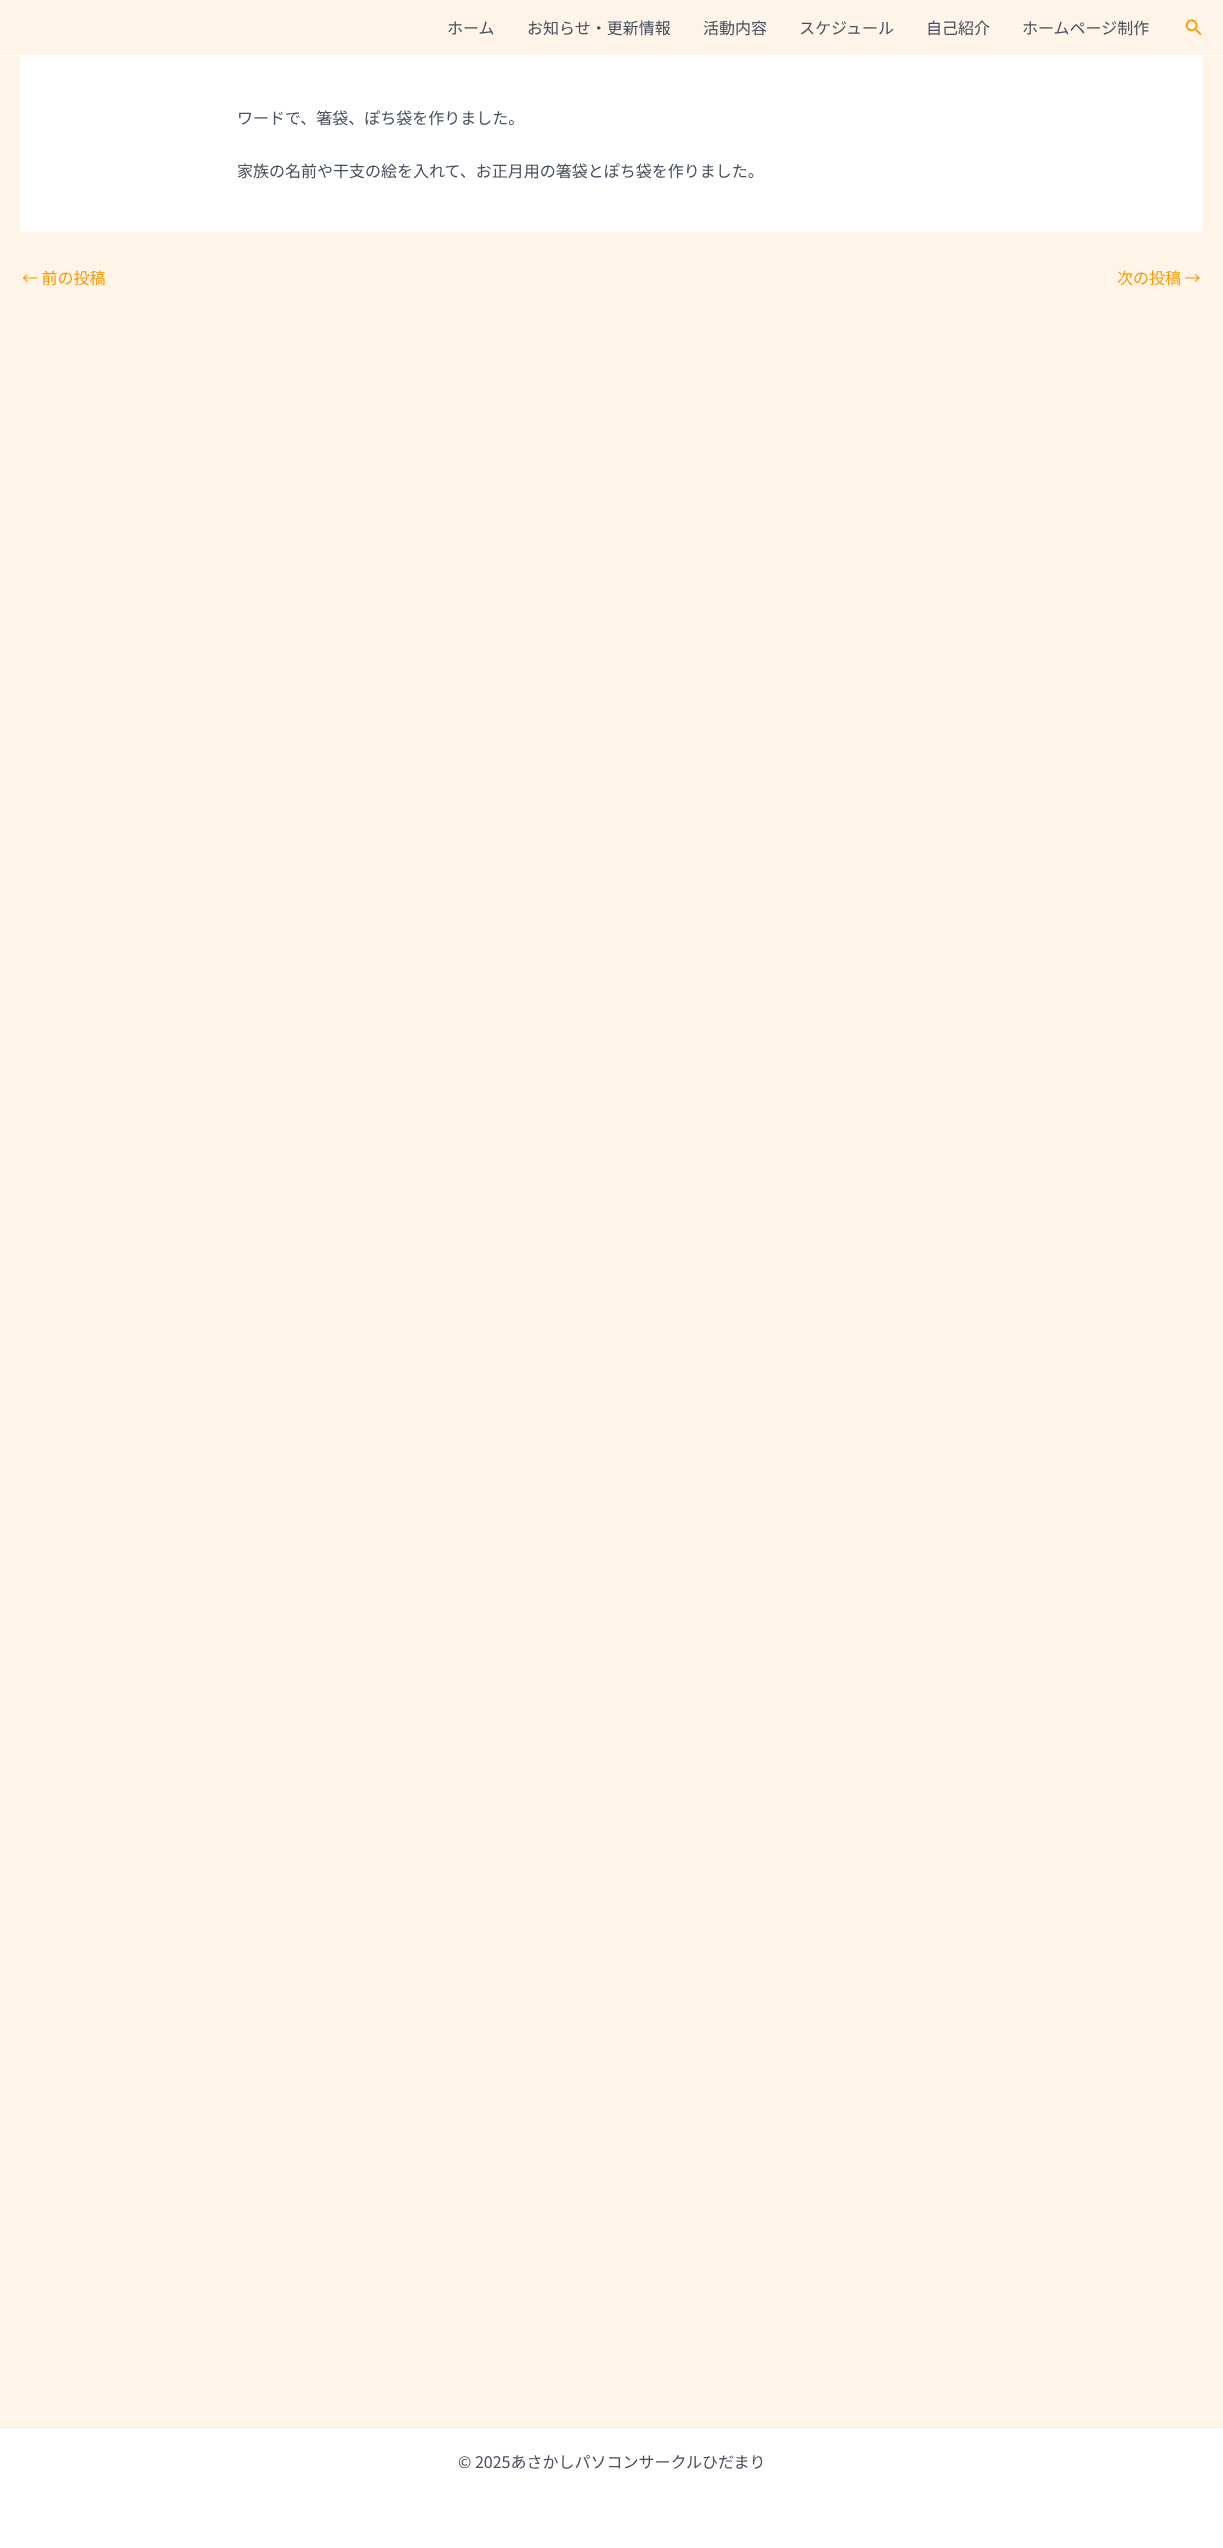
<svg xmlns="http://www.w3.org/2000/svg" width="1223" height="2548">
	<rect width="100%" height="100%" fill="#FEF4E7" />
	<rect x="0" y="55" width="1223" height="1" fill="#FFFFFF" />
	<g font-family="Noto Sans JP" font-size="16" fill="#454F5E">
		<text x="447" y="34">ホーム</text>
		<text x="527" y="34">お知らせ・更新情報</text>
		<text x="703" y="34">活動内容</text>
		<text x="799" y="34">スケジュール</text>
		<text x="926" y="34">自己紹介</text>
		<text x="1022" y="34">ホームページ制作</text>
	</g>
	<image x="1185" y="19" width="16" height="17" href="assets/img1.png" />
	<rect x="20" y="56" width="1183" height="176" fill="#FFFFFF" />
	<g font-family="Noto Sans JP" font-size="16" fill="#454F5E">
		<text x="237" y="124">ワードで、箸袋、ぽち袋を作りました。</text>
		<text x="237" y="177">家族の名前や干支の絵を入れて、お正月用の箸袋とぽち袋を作りました。</text>
	</g>
	<g font-family="Noto Sans JP" font-size="16" fill="#FD9800">
		<text x="22" y="284">← 前の投稿</text>
		<text x="1117" y="284">次の投稿 →</text>
	</g>
	<rect x="0" y="2428" width="1223" height="120" fill="#FFFFFF" />
	<rect x="0" y="2427" width="1223" height="1" fill="#F9F0C8" />
	<text x="458" y="2468" font-family="Noto Sans JP" font-size="16" fill="#454F5E">© 2025あさかしパソコンサークルひだまり</text>
</svg>
